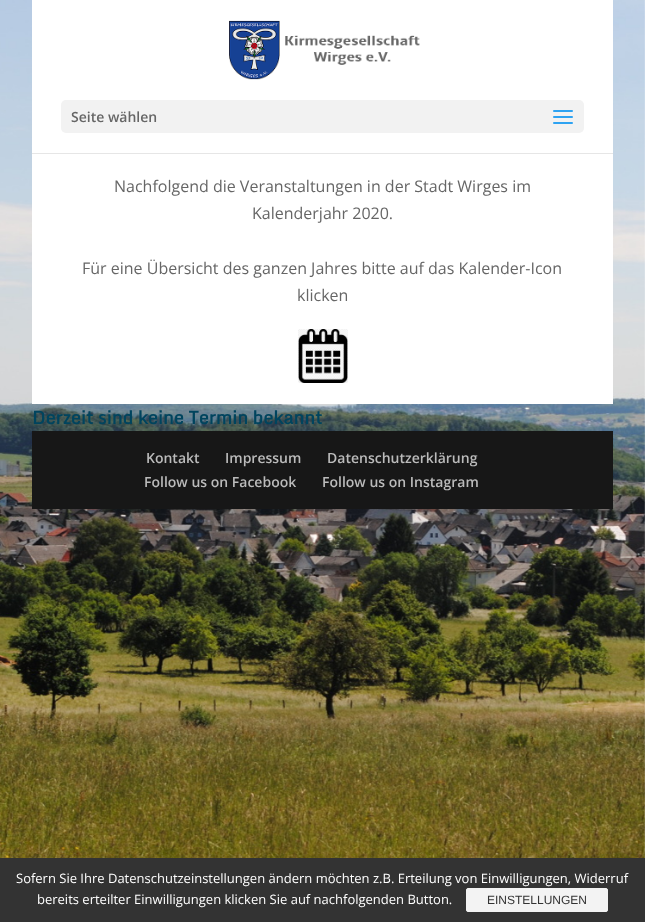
<svg xmlns="http://www.w3.org/2000/svg" width="645" height="922">
	<rect width="100%" height="100%" fill="#FFFFFF" />
	<image x="0" y="0" width="645" height="858" href="assets/img1.png" />
	<rect x="32" y="153" width="581" height="1" fill="#E6E6E6" />
	<rect x="32" y="0" width="581" height="153" fill="#FFFFFF" />
	<image x="229" y="20" width="191" height="60" href="assets/img2.png" />
	<rect x="61" y="100" width="523" height="33" rx="5" fill="#F2F2F2" />
	<text x="71" y="122" font-family="Open Sans" font-size="14" font-weight="600" fill="#666666">Seite wählen</text>
	<image x="553" y="110" width="20" height="14" href="assets/img3.png" />
	<rect x="32" y="154" width="581" height="250" fill="#FFFFFF" />
	<g font-family="Open Sans" font-size="16" fill="#666666">
		<text x="114" y="192">Nachfolgend die Veranstaltungen in der Stadt Wirges im</text>
		<text x="252" y="219">Kalenderjahr 2020.</text>
		<text x="82" y="274">Für eine Übersicht des ganzen Jahres bitte auf das Kalender-Icon</text>
		<text x="297" y="301">klicken</text>
	</g>
	<image x="298" y="329" width="50" height="54" href="assets/img4.png" />
	<text x="32" y="424" font-family="Monda" font-size="18" font-weight="700" fill="#00445E">Derzeit sind keine Termin bekannt</text>
	<rect x="32" y="431" width="581" height="78" fill="#171717" />
	<g font-family="Open Sans" font-size="14" font-weight="600" fill="#BBBBBB">
		<text x="146" y="463">Kontakt</text>
		<text x="225" y="463">Impressum</text>
		<text x="327" y="463">Datenschutzerklärung</text>
		<text x="144" y="487">Follow us on Facebook</text>
		<text x="322" y="487">Follow us on Instagram</text>
	</g>
	<rect x="0" y="858" width="645" height="64" fill="#333333" />
	<g font-family="Open Sans" font-size="13" fill="#FFFFFF">
		<text x="16" y="883">Sofern Sie Ihre Datenschutzeinstellungen ändern möchten z.B. Erteilung von Einwilligungen, Widerruf</text>
		<text x="37" y="904">bereits erteilter Einwilligungen klicken Sie auf nachfolgenden Button.</text>
	</g>
	<rect x="466.5" y="888.5" width="141" height="23" rx="1.5" fill="#F3F3F3" stroke="#F3F3F3" />
	<text x="487" y="904" font-family="Liberation Sans" font-size="12" fill="#333333">EINSTELLUNGEN</text>
</svg>
